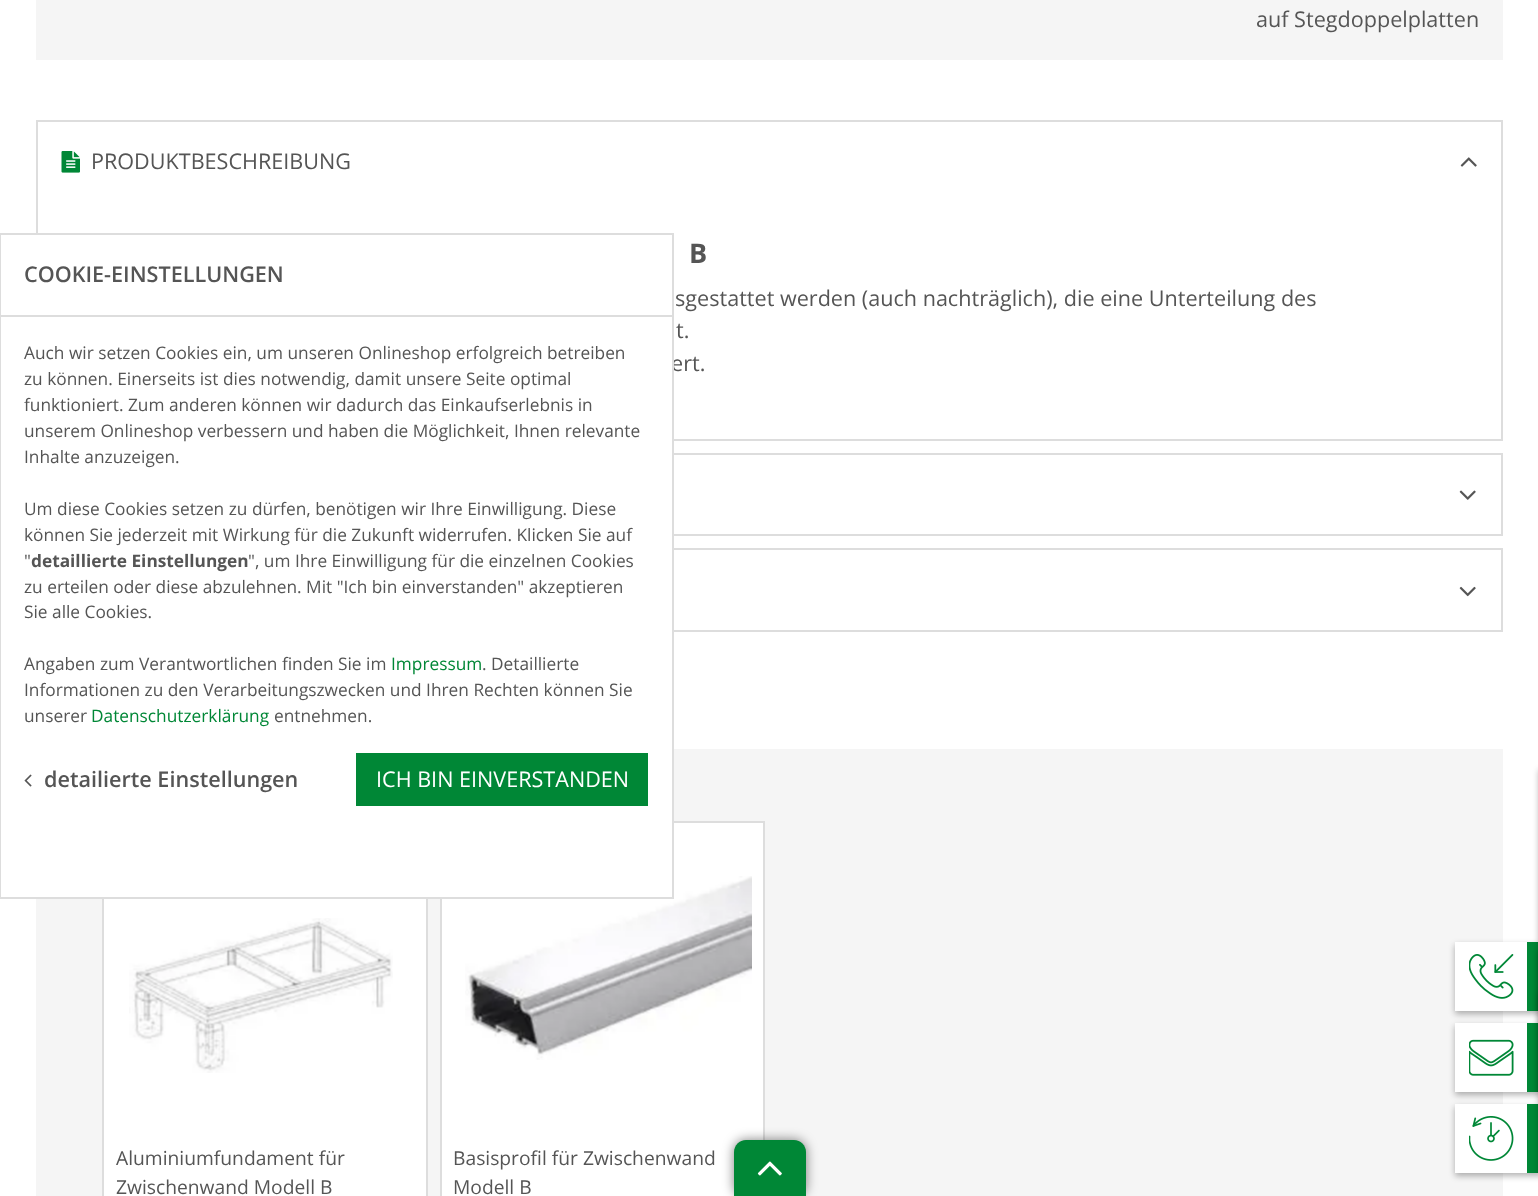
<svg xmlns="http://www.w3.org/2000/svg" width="1538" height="1196">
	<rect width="100%" height="100%" fill="#FFFFFF" />
	<rect x="36" y="0" width="1467" height="60" fill="#F5F5F5" />
	<text x="1256" y="27" font-family="Open Sans" font-size="21.6" fill="#555555">auf Stegdoppelplatten</text>
	<rect x="37" y="121" width="1465" height="319" fill="none" stroke="#DDDDDD" stroke-width="2" />
	<image x="61" y="151" width="19" height="22" href="assets/img1.png" />
	<text x="91" y="169" font-family="Open Sans" font-size="21.6" fill="#555555">PRODUKTBESCHREIBUNG</text>
	<image x="1460" y="157" width="17" height="10" href="assets/img2.png" />
	<text x="689" y="263" font-family="Open Sans" font-size="27" font-weight="700" fill="#555555">B</text>
	<g font-family="Open Sans" font-size="21.6" fill="#555555">
		<text x="675" y="306">sgestattet werden (auch nachträglich), die eine Unterteilung des</text>
		<text x="676" y="338">t.</text>
		<text x="671" y="371">ert.</text>
	</g>
	<rect x="37" y="454" width="1465" height="81" fill="none" stroke="#DDDDDD" stroke-width="2" />
	<image x="1459" y="490" width="17" height="10" href="assets/img3.png" />
	<rect x="37" y="549" width="1465" height="82" fill="none" stroke="#DDDDDD" stroke-width="2" />
	<image x="1459" y="586" width="17" height="11" href="assets/img4.png" />
	<rect x="36" y="749" width="1467" height="447" fill="#F5F5F5" />
	<rect x="104" y="899" width="322" height="297" fill="#FFFFFF" />
	<rect x="103" y="822" width="324" height="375" fill="none" stroke="#DDDDDD" stroke-width="2" />
	<image x="129" y="918" width="264" height="155" href="assets/img5.png" />
	<g font-family="Open Sans" font-size="19.25" fill="#555555">
		<text x="116" y="1165">Aluminiumfundament für</text>
		<text x="116" y="1194">Zwischenwand Modell B</text>
	</g>
	<rect x="441" y="822" width="323" height="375" fill="#FFFFFF" stroke="#DDDDDD" stroke-width="2" />
	<image x="465" y="876" width="287" height="184" href="assets/img6.png" />
	<g font-family="Open Sans" font-size="19.25" fill="#555555">
		<text x="453" y="1165">Basisprofil für Zwischenwand</text>
		<text x="453" y="1194">Modell B</text>
	</g>
	<rect x="36" y="235" width="636" height="662" fill="#FFFFFF" />
	<rect x="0" y="234" width="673" height="664" fill="none" stroke="#DDDDDD" stroke-width="2" />
	<rect x="0" y="315" width="672" height="2" fill="#DDDDDD" />
	<text x="24" y="282" font-family="Open Sans" font-size="21.6" font-weight="600" fill="#555555">COOKIE-EINSTELLUNGEN</text>
	<g font-family="Open Sans" font-size="17.3" fill="#555555">
		<text x="24" y="359">Auch wir setzen Cookies ein, um unseren Onlineshop erfolgreich betreiben</text>
		<text x="24" y="385">zu können. Einerseits ist dies notwendig, damit unsere Seite optimal</text>
		<text x="24" y="411">funktioniert. Zum anderen können wir dadurch das Einkaufserlebnis in</text>
		<text x="24" y="437">unserem Onlineshop verbessern und haben die Möglichkeit, Ihnen relevante</text>
		<text x="24" y="463">Inhalte anzuzeigen.</text>
		<text x="24" y="515">Um diese Cookies setzen zu dürfen, benötigen wir Ihre Einwilligung. Diese</text>
		<text x="24" y="541">können Sie jederzeit mit Wirkung für die Zukunft widerrufen. Klicken Sie auf</text>
		<text x="24" y="567">"</text>
	</g>
	<text x="31" y="567" font-family="Open Sans" font-size="17.3" font-weight="700" fill="#555555">detaillierte Einstellungen</text>
	<g font-family="Open Sans" font-size="17.3" fill="#555555">
		<text x="248" y="567">", um Ihre Einwilligung für die einzelnen Cookies</text>
		<text x="24" y="593">zu erteilen oder diese abzulehnen. Mit "Ich bin einverstanden" akzeptieren</text>
		<text x="24" y="618">Sie alle Cookies.</text>
		<text x="24" y="670">Angaben zum Verantwortlichen finden Sie im</text>
	</g>
	<text x="391" y="670" font-family="Open Sans" font-size="17.3" fill="#008736">Impressum</text>
	<g font-family="Open Sans" font-size="17.3" fill="#555555">
		<text x="482" y="670">. Detaillierte</text>
		<text x="24" y="696">Informationen zu den Verarbeitungszwecken und Ihren Rechten können Sie</text>
		<text x="24" y="722">unserer</text>
	</g>
	<text x="91" y="722" font-family="Open Sans" font-size="17.3" fill="#008736">Datenschutzerklärung</text>
	<text x="274" y="722" font-family="Open Sans" font-size="17.3" fill="#555555">entnehmen.</text>
	<image x="24" y="774" width="8" height="13" href="assets/img7.png" />
	<text x="44" y="787" font-family="Open Sans" font-size="21.6" font-weight="600" fill="#555555">detailierte Einstellungen</text>
	<rect x="356" y="753" width="292" height="53" fill="#008736" />
	<text x="376" y="787" font-family="Open Sans" font-size="21.6" fill="#FFFFFF">ICH BIN EINVERSTANDEN</text>
	<rect x="734" y="1140" width="72" height="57" rx="12" fill="#000000" fill-opacity="0.5" filter="blur(6px)" />
	<path d="M746 1140H794C800.5 1140 806 1145.5 806 1152V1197H734V1152C734 1145.5 739.5 1140 746 1140Z" fill="#008736" />
	<image x="757" y="1161" width="25" height="15" href="assets/img8.png" />
	<rect x="1455" y="945" width="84" height="69" fill="#000000" fill-opacity="0.3" filter="blur(3px)" />
	<rect x="1455" y="942" width="72" height="69" fill="#FFFFFF" />
	<rect x="1527" y="942" width="11" height="69" fill="#008736" />
	<image x="1469" y="954" width="45" height="45" href="assets/img9.png" />
	<rect x="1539" y="770" width="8" height="244" fill="#000000" fill-opacity="0.3" filter="blur(3px)" />
	<rect x="1455" y="1026" width="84" height="69" fill="#000000" fill-opacity="0.3" filter="blur(3px)" />
	<rect x="1455" y="1023" width="72" height="69" fill="#FFFFFF" />
	<rect x="1527" y="1023" width="11" height="69" fill="#008736" />
	<image x="1469" y="1039" width="45" height="37" href="assets/img10.png" />
	<rect x="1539" y="951" width="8" height="144" fill="#000000" fill-opacity="0.3" filter="blur(3px)" />
	<rect x="1455" y="1107" width="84" height="69" fill="#000000" fill-opacity="0.3" filter="blur(3px)" />
	<rect x="1455" y="1104" width="72" height="69" fill="#FFFFFF" />
	<rect x="1527" y="1104" width="11" height="69" fill="#008736" />
	<image x="1469" y="1116" width="45" height="45" href="assets/img11.png" />
	<rect x="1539" y="993" width="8" height="183" fill="#000000" fill-opacity="0.3" filter="blur(3px)" />
</svg>
